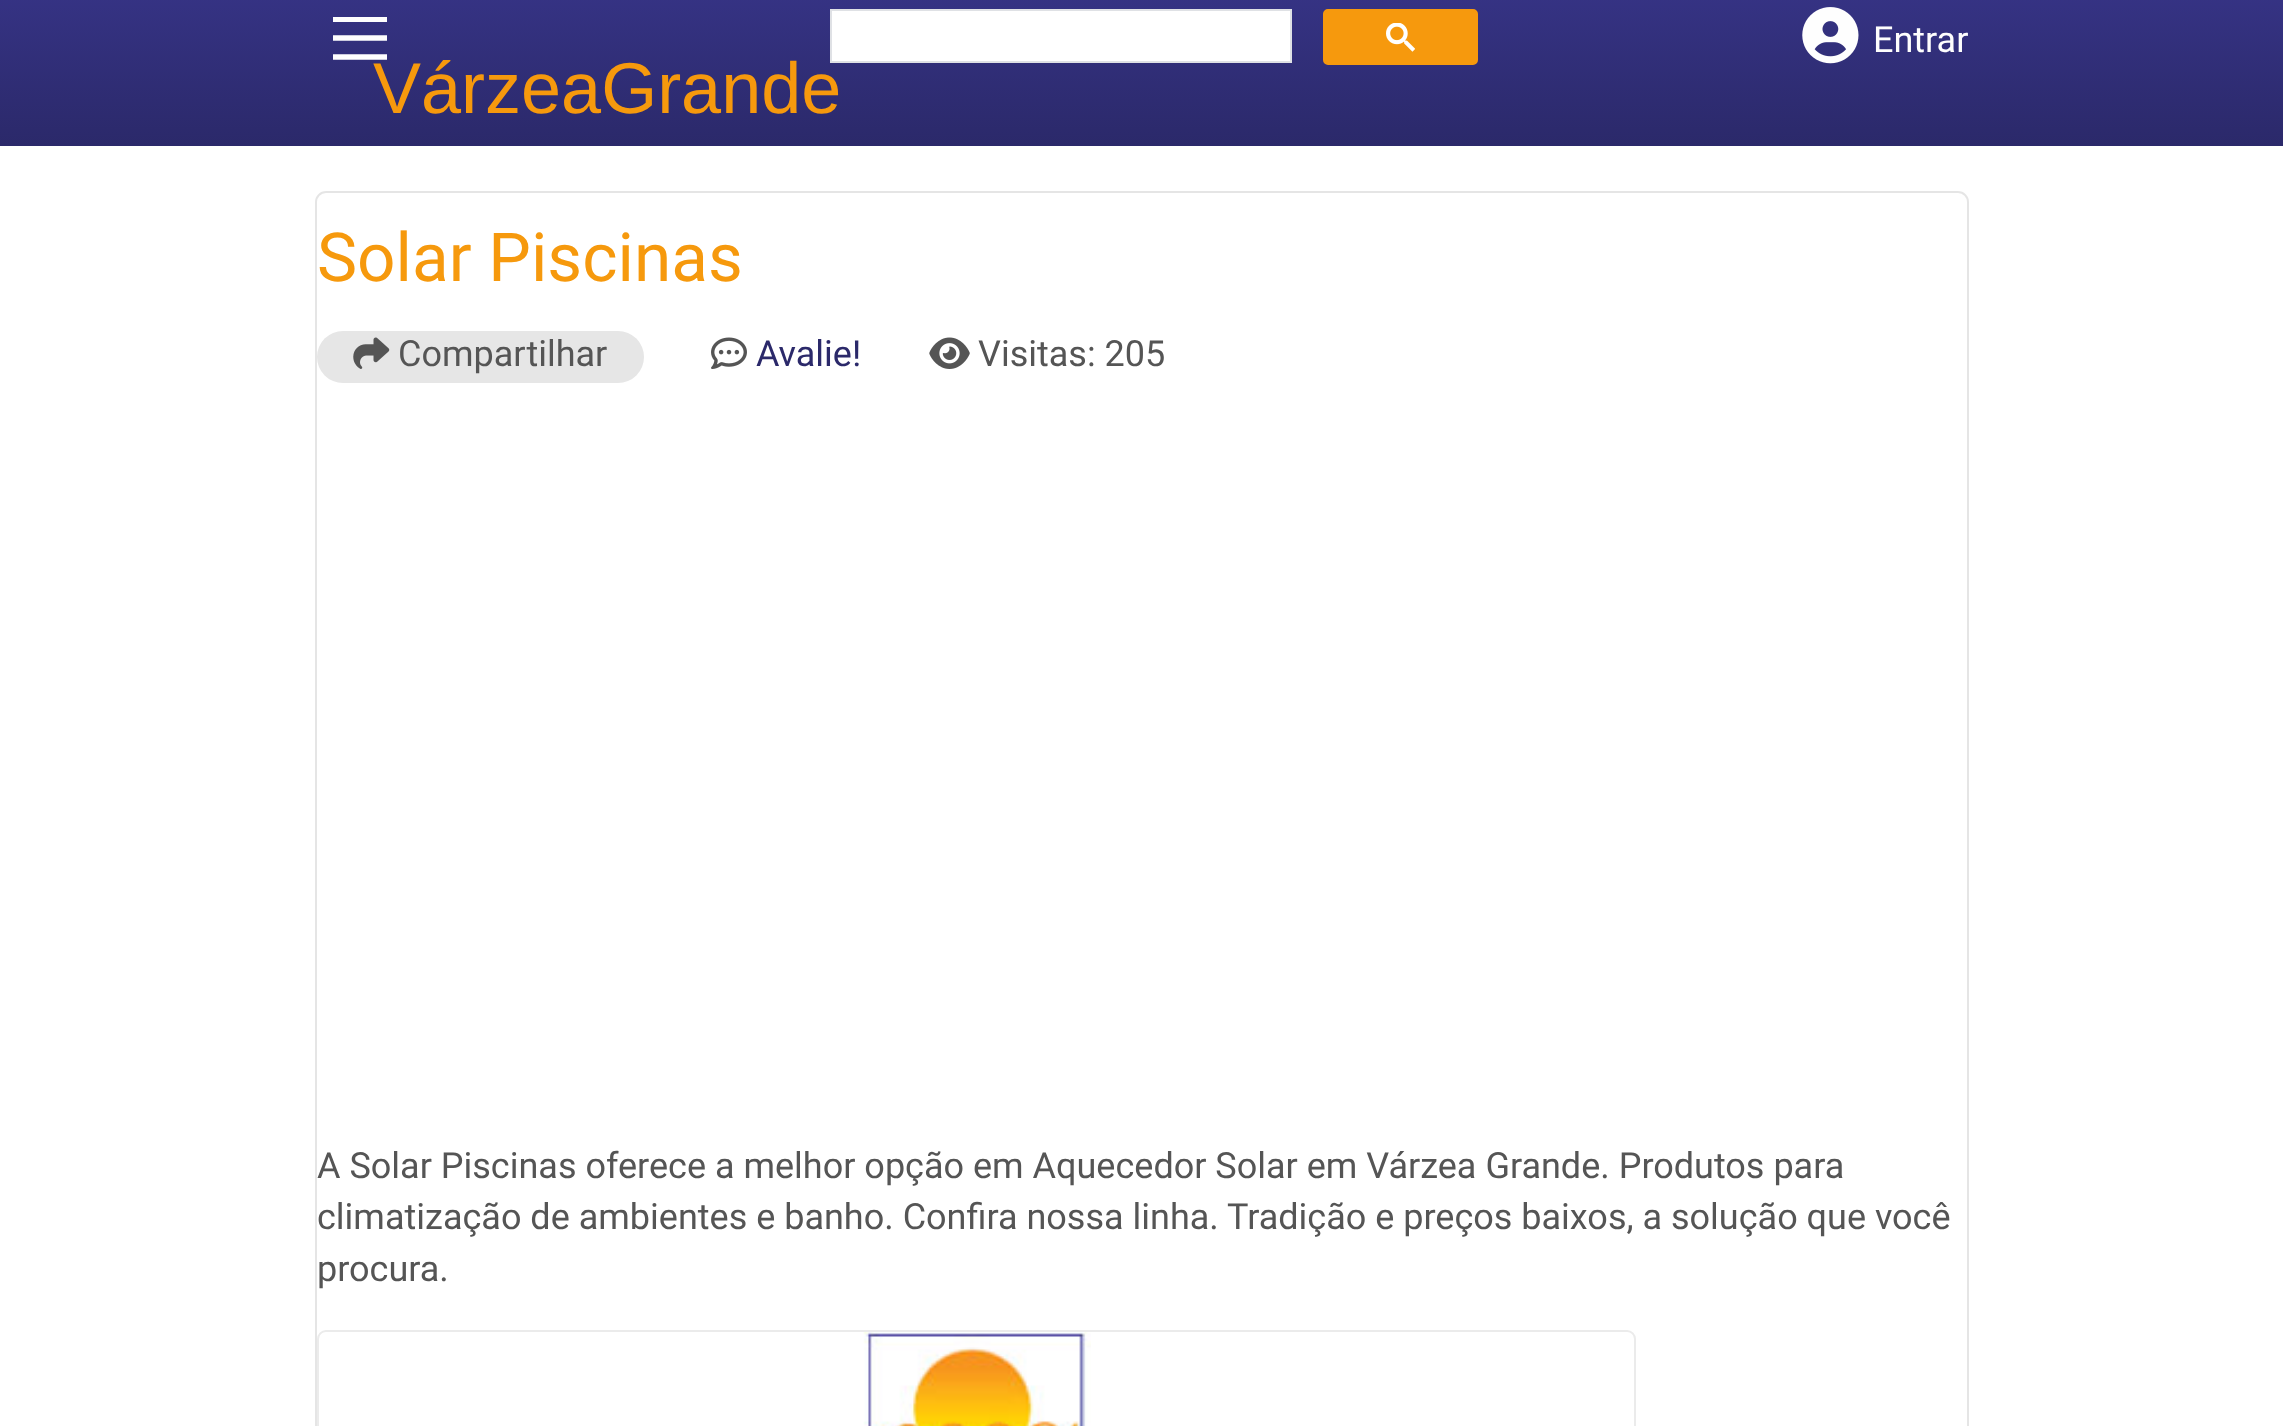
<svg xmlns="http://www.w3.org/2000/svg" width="2283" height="1426">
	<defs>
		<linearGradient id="g1" gradientUnits="userSpaceOnUse" x1="1142" y1="-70" x2="1142" y2="146"><stop offset="0" stop-color="#3A378F" /><stop offset="1" stop-color="#2B296A" /></linearGradient>
	</defs>
	<rect width="100%" height="100%" fill="#FFFFFF" />
	<rect x="0" y="0" width="2283" height="146" fill="url(#g1)" />
	<rect x="333" y="17" width="54" height="5" fill="#FEFEFE" />
	<path d="M333 38H387M333 57H387" fill="none" stroke="#FEFEFE" stroke-width="5.4" />
	<text x="373" y="113" font-family="Liberation Sans" font-size="72" fill="#F6990D">VárzeaGrande</text>
	<rect x="831" y="10" width="460" height="52" fill="#FFFFFF" stroke="#DFE1E5" stroke-width="2" />
	<rect x="1324" y="10" width="153" height="54" rx="4" fill="#F6990D" stroke="#F6990D" stroke-width="2" />
	<image x="1386" y="23" width="29" height="29" href="assets/img1.png" />
	<image x="1802" y="7" width="57" height="57" href="assets/img2.png" />
	<text x="1873" y="52" font-family="Roboto" font-size="36" fill="#FEFEFE">Entrar</text>
	<rect x="316" y="192" width="1652" height="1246" rx="10" fill="none" stroke="#000000" stroke-opacity="0.1" stroke-width="2" />
	<text x="317" y="281" font-family="Roboto" font-size="67.5" fill="#F6990D">Solar Piscinas</text>
	<rect x="317" y="331" width="327" height="52" rx="26" fill="#E6E6E6" />
	<image x="353" y="337" width="37" height="32" href="assets/img3.png" />
	<text x="398" y="366" font-family="Roboto" font-size="36" fill="#555555">Compartilhar</text>
	<image x="711" y="337" width="36" height="32" href="assets/img4.png" />
	<text x="756" y="366" font-family="Roboto" font-size="36" fill="#2B296A">Avalie!</text>
	<image x="929" y="337" width="41" height="32" href="assets/img5.png" />
	<g font-family="Roboto" font-size="36" fill="#555555">
		<text x="978" y="366">Visitas: 205</text>
		<text x="317" y="1178">A Solar Piscinas oferece a melhor opção em Aquecedor Solar em Várzea Grande. Produtos para</text>
		<text x="317" y="1229">climatização de ambientes e banho. Confira nossa linha. Tradição e preços baixos, a solução que você</text>
		<text x="317" y="1281">procura.</text>
	</g>
	<rect x="318" y="1331" width="1317" height="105" rx="8" fill="none" stroke="#EBEBEB" stroke-width="2" />
	<image x="863" y="1332" width="228" height="94" href="assets/img6.png" />
</svg>
